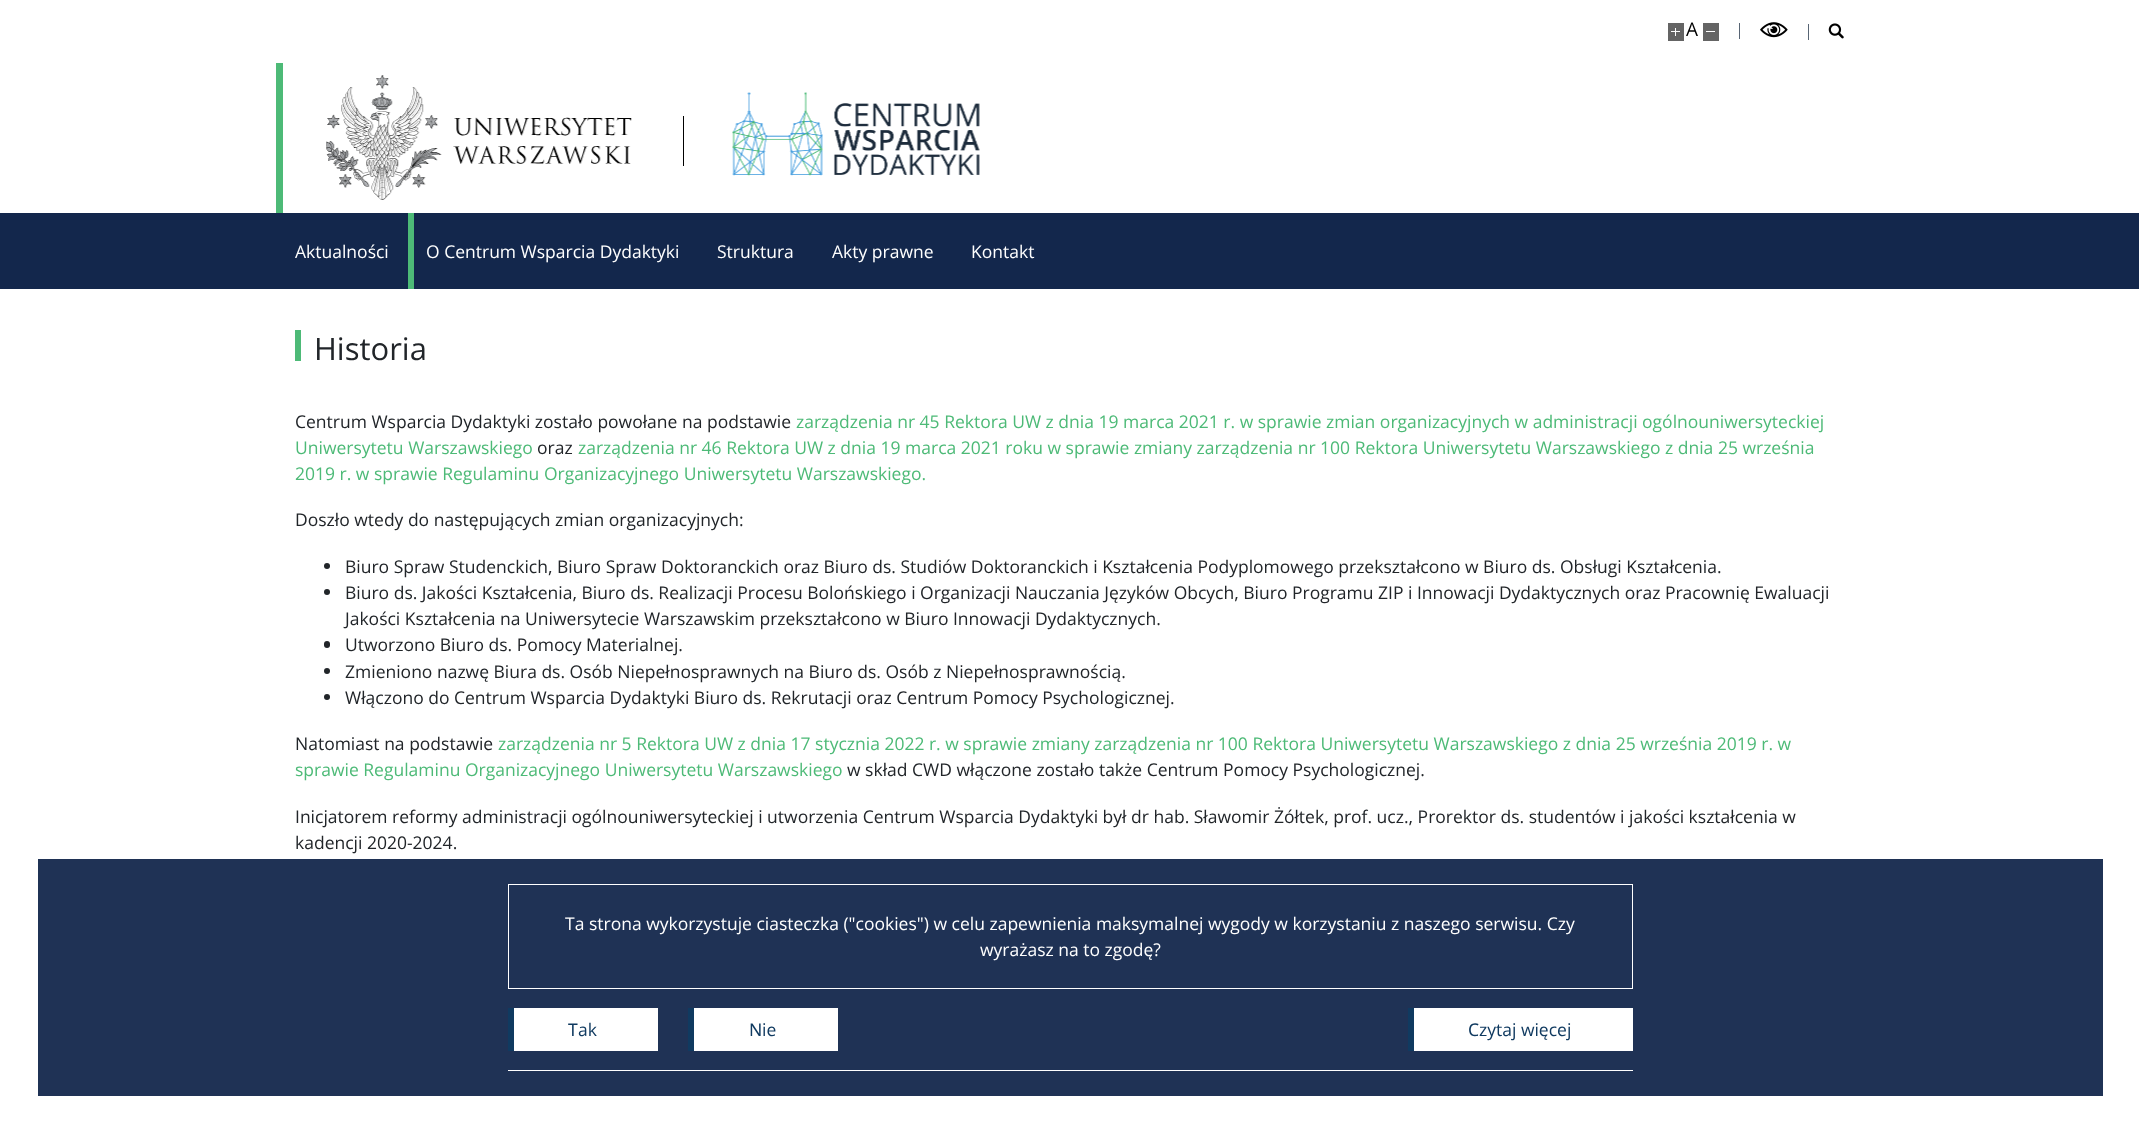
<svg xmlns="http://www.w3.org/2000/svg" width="2139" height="1133">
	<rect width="100%" height="100%" fill="#FFFFFF" />
	<rect x="38" y="859" width="2065" height="237" fill="#1F3255" />
	<rect x="1668" y="23" width="16" height="18" fill="#646464" />
	<rect x="1671" y="31" width="9" height="1" fill="#FFFFFF" />
	<rect x="1675" y="28" width="1" height="8" fill="#FFFFFF" />
	<text x="1686" y="36" font-family="Open Sans" font-size="19" fill="#000000">A</text>
	<rect x="1703" y="23" width="16" height="18" fill="#646464" />
	<rect x="1706" y="31" width="9" height="1" fill="#FFFFFF" />
	<rect x="1739" y="23" width="1" height="16" fill="#586574" />
	<image x="1760" y="22" width="28" height="16" href="assets/img1.png" />
	<rect x="1808" y="24" width="1" height="16" fill="#586574" />
	<image x="1828" y="23" width="16" height="16" href="assets/img2.png" />
	<rect x="276" y="63" width="7" height="150" fill="#4DBA77" />
	<image x="326" y="75" width="306" height="125" href="assets/img3.png" />
	<rect x="683" y="116" width="1" height="50" fill="#000000" />
	<image x="732" y="92" width="248" height="84" href="assets/img4.png" />
	<rect x="0" y="213" width="2139" height="76" fill="#13274C" />
	<text x="295" y="258" font-family="Open Sans" font-size="17.5" fill="#FFFFFF">Aktualności</text>
	<rect x="408" y="213" width="6" height="76" fill="#4DBA77" />
	<g font-family="Open Sans" font-size="17.5" fill="#FFFFFF">
		<text x="426" y="258">O Centrum Wsparcia Dydaktyki</text>
		<text x="717" y="258">Struktura</text>
		<text x="832" y="258">Akty prawne</text>
		<text x="971" y="258">Kontakt</text>
	</g>
	<rect x="508.5" y="884.5" width="1124" height="104" fill="none" stroke="#FFFFFF" />
	<g font-family="Open Sans" font-size="17.5" fill="#FFFFFF">
		<text x="565" y="930">Ta strona wykorzystuje ciasteczka ("cookies") w celu zapewnienia maksymalnej wygody w korzystaniu z naszego serwisu. Czy</text>
		<text x="980" y="956">wyrażasz na to zgodę?</text>
	</g>
	<rect x="508" y="1070" width="1125" height="1" fill="#FFFFFF" />
	<rect x="514" y="1008" width="144" height="43" fill="#FFFFFF" />
	<rect x="508" y="1008" width="6" height="43" fill="#103A60" />
	<text x="568" y="1036" font-family="Noto Sans" font-size="17.5" fill="#103A60">T</text>
	<text x="578" y="1036" font-family="Open Sans" font-size="17.5" fill="#103A60">ak</text>
	<rect x="694" y="1008" width="144" height="43" fill="#FFFFFF" />
	<rect x="688" y="1008" width="6" height="43" fill="#103A60" />
	<text x="749" y="1036" font-family="Noto Sans" font-size="17.5" fill="#103A60">N</text>
	<text x="762" y="1036" font-family="Open Sans" font-size="17.5" fill="#103A60">ie</text>
	<rect x="1414" y="1008" width="219" height="43" fill="#FFFFFF" />
	<rect x="1408" y="1008" width="6" height="43" fill="#103A60" />
	<text x="1468" y="1036" font-family="Noto Sans" font-size="17.5" fill="#103A60">C</text>
	<text x="1479" y="1036" font-family="Open Sans" font-size="17.5" fill="#103A60">zytaj więcej</text>
	<rect x="295" y="330" width="6" height="31" fill="#4DBA77" />
	<text x="314" y="360" font-family="Open Sans" font-size="31" fill="#212529">Historia</text>
	<text x="295" y="428" font-family="Open Sans" font-size="17.5" fill="#212529">Centrum Wsparcia Dydaktyki zostało powołane na podstawie</text>
	<g font-family="Open Sans" font-size="17.5" fill="#4DBA77">
		<text x="796" y="428">zarządzenia nr 45 Rektora UW z dnia 19 marca 2021 r. w sprawie zmian organizacyjnych w administracji ogólnouniwersyteckiej</text>
		<text x="295" y="454">Uniwersytetu Warszawskiego</text>
	</g>
	<text x="537" y="454" font-family="Open Sans" font-size="17.5" fill="#212529">oraz</text>
	<g font-family="Open Sans" font-size="17.5" fill="#4DBA77">
		<text x="578" y="454">zarządzenia nr 46 Rektora UW z dnia 19 marca 2021 roku w sprawie zmiany zarządzenia nr 100 Rektora Uniwersytetu Warszawskiego z dnia 25 września</text>
		<text x="295" y="480">2019 r. w sprawie Regulaminu Organizacyjnego Uniwersytetu Warszawskiego.</text>
	</g>
	<text x="295" y="526" font-family="Open Sans" font-size="17.5" fill="#212529">Doszło wtedy do następujących zmian organizacyjnych:</text>
	<circle cx="327" cy="566" r="3" fill="#212529" />
	<text x="345" y="573" font-family="Open Sans" font-size="17.5" fill="#212529">Biuro Spraw Studenckich, Biuro Spraw Doktoranckich oraz Biuro ds. Studiów Doktoranckich i Kształcenia Podyplomowego przekształcono w Biuro ds. Obsługi Kształcenia.</text>
	<circle cx="327" cy="592" r="3" fill="#212529" />
	<g font-family="Open Sans" font-size="17.5" fill="#212529">
		<text x="345" y="599">Biuro ds. Jakości Kształcenia, Biuro ds. Realizacji Procesu Bolońskiego i Organizacji Nauczania Języków Obcych, Biuro Programu ZIP i Innowacji Dydaktycznych oraz Pracownię Ewaluacji</text>
		<text x="345" y="625">Jakości Kształcenia na Uniwersytecie Warszawskim przekształcono w Biuro Innowacji Dydaktycznych.</text>
	</g>
	<rect x="324" y="641" width="6" height="7" rx="3" fill="#212529" />
	<text x="345" y="651" font-family="Open Sans" font-size="17.5" fill="#212529">Utworzono Biuro ds. Pomocy Materialnej.</text>
	<circle cx="327" cy="671" r="3" fill="#212529" />
	<text x="345" y="678" font-family="Open Sans" font-size="17.5" fill="#212529">Zmieniono nazwę Biura ds. Osób Niepełnosprawnych na Biuro ds. Osób z Niepełnosprawnością.</text>
	<circle cx="327" cy="697" r="3" fill="#212529" />
	<g font-family="Open Sans" font-size="17.5" fill="#212529">
		<text x="345" y="704">Włączono do Centrum Wsparcia Dydaktyki Biuro ds. Rekrutacji oraz Centrum Pomocy Psychologicznej.</text>
		<text x="295" y="750">Natomiast na podstawie</text>
	</g>
	<g font-family="Open Sans" font-size="17.5" fill="#4DBA77">
		<text x="498" y="750">zarządzenia nr 5 Rektora UW z dnia 17 stycznia 2022 r. w sprawie zmiany zarządzenia nr 100 Rektora Uniwersytetu Warszawskiego z dnia 25 września 2019 r. w</text>
		<text x="295" y="776">sprawie Regulaminu Organizacyjnego Uniwersytetu Warszawskiego</text>
	</g>
	<g font-family="Open Sans" font-size="17.5" fill="#212529">
		<text x="847" y="776">w skład CWD włączone zostało także Centrum Pomocy Psychologicznej.</text>
		<text x="295" y="823">Inicjatorem reformy administracji ogólnouniwersyteckiej i utworzenia Centrum Wsparcia Dydaktyki był dr hab. Sławomir Żółtek, prof. ucz., Prorektor ds. studentów i jakości kształcenia w</text>
		<text x="295" y="849">kadencji 2020-2024.</text>
	</g>
</svg>
